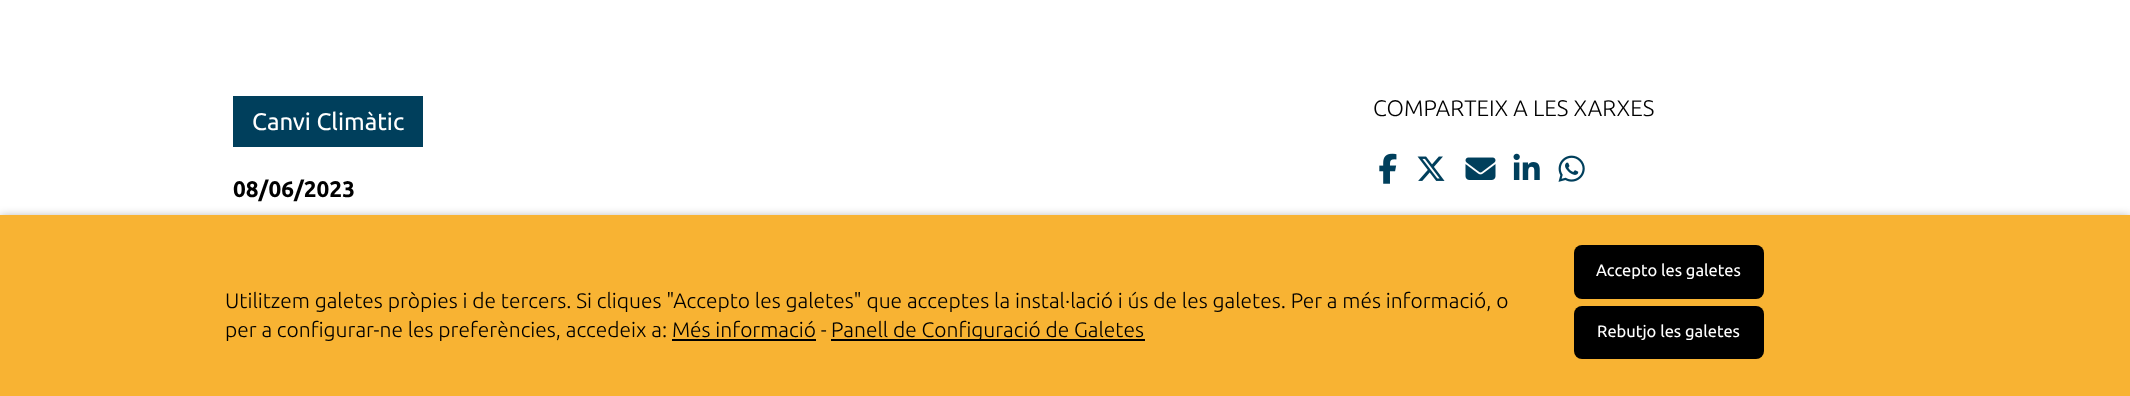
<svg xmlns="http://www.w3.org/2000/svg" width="2130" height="396">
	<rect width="100%" height="100%" fill="#FFFFFF" />
	<text x="1373" y="116" font-family="Ubuntu" font-size="22.5" font-weight="300" fill="#000000">COMPARTEIX A LES XARXES</text>
	<image x="1379" y="153" width="18" height="31" href="assets/img1.png" />
	<image x="1417" y="156" width="28" height="25" href="assets/img2.png" />
	<image x="1465" y="157" width="31" height="23" href="assets/img3.png" />
	<image x="1513" y="153" width="27" height="27" href="assets/img4.png" />
	<image x="1558" y="155" width="27" height="27" href="assets/img5.png" />
	<rect x="233" y="96" width="190" height="51" fill="#003F5C" />
	<text x="252" y="130" font-family="Ubuntu" font-size="24" fill="#FFFFFF">Canvi Climàtic</text>
	<text x="233" y="197" font-family="Ubuntu" font-size="22.5" font-weight="700" fill="#000000">08/06/2023</text>
	<rect x="0" y="216" width="2130" height="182" fill="#000000" fill-opacity="0.3" filter="blur(5px)" />
	<rect x="0" y="215" width="2130" height="181" fill="#F8B333" />
	<g font-family="Ubuntu" font-size="21" font-weight="300" fill="#000000">
		<text x="225" y="308">Utilitzem galetes pròpies i de tercers. Si cliques "Accepto les galetes" que acceptes la instal·lació i ús de les galetes. Per a més informació, o</text>
		<text x="225" y="337">per a configurar-ne les preferències, accedeix a: Més informació -</text>
	</g>
	<rect x="831" y="339" width="314" height="2" fill="#000000" />
	<text x="831" y="337" font-family="Ubuntu" font-size="21" font-weight="300" fill="#000000">Panell de Configuració de Galetes</text>
	<rect x="672" y="339" width="144" height="2" fill="#000000" />
	<rect x="1574" y="245" width="190" height="54" rx="8" fill="#000000" />
	<text x="1596" y="276" font-family="Ubuntu" font-size="16.5" fill="#FFFFFF">Accepto les galetes</text>
	<rect x="1574" y="306" width="190" height="53" rx="8" fill="#000000" />
	<text x="1597" y="337" font-family="Ubuntu" font-size="16.5" fill="#FFFFFF">Rebutjo les galetes</text>
</svg>
